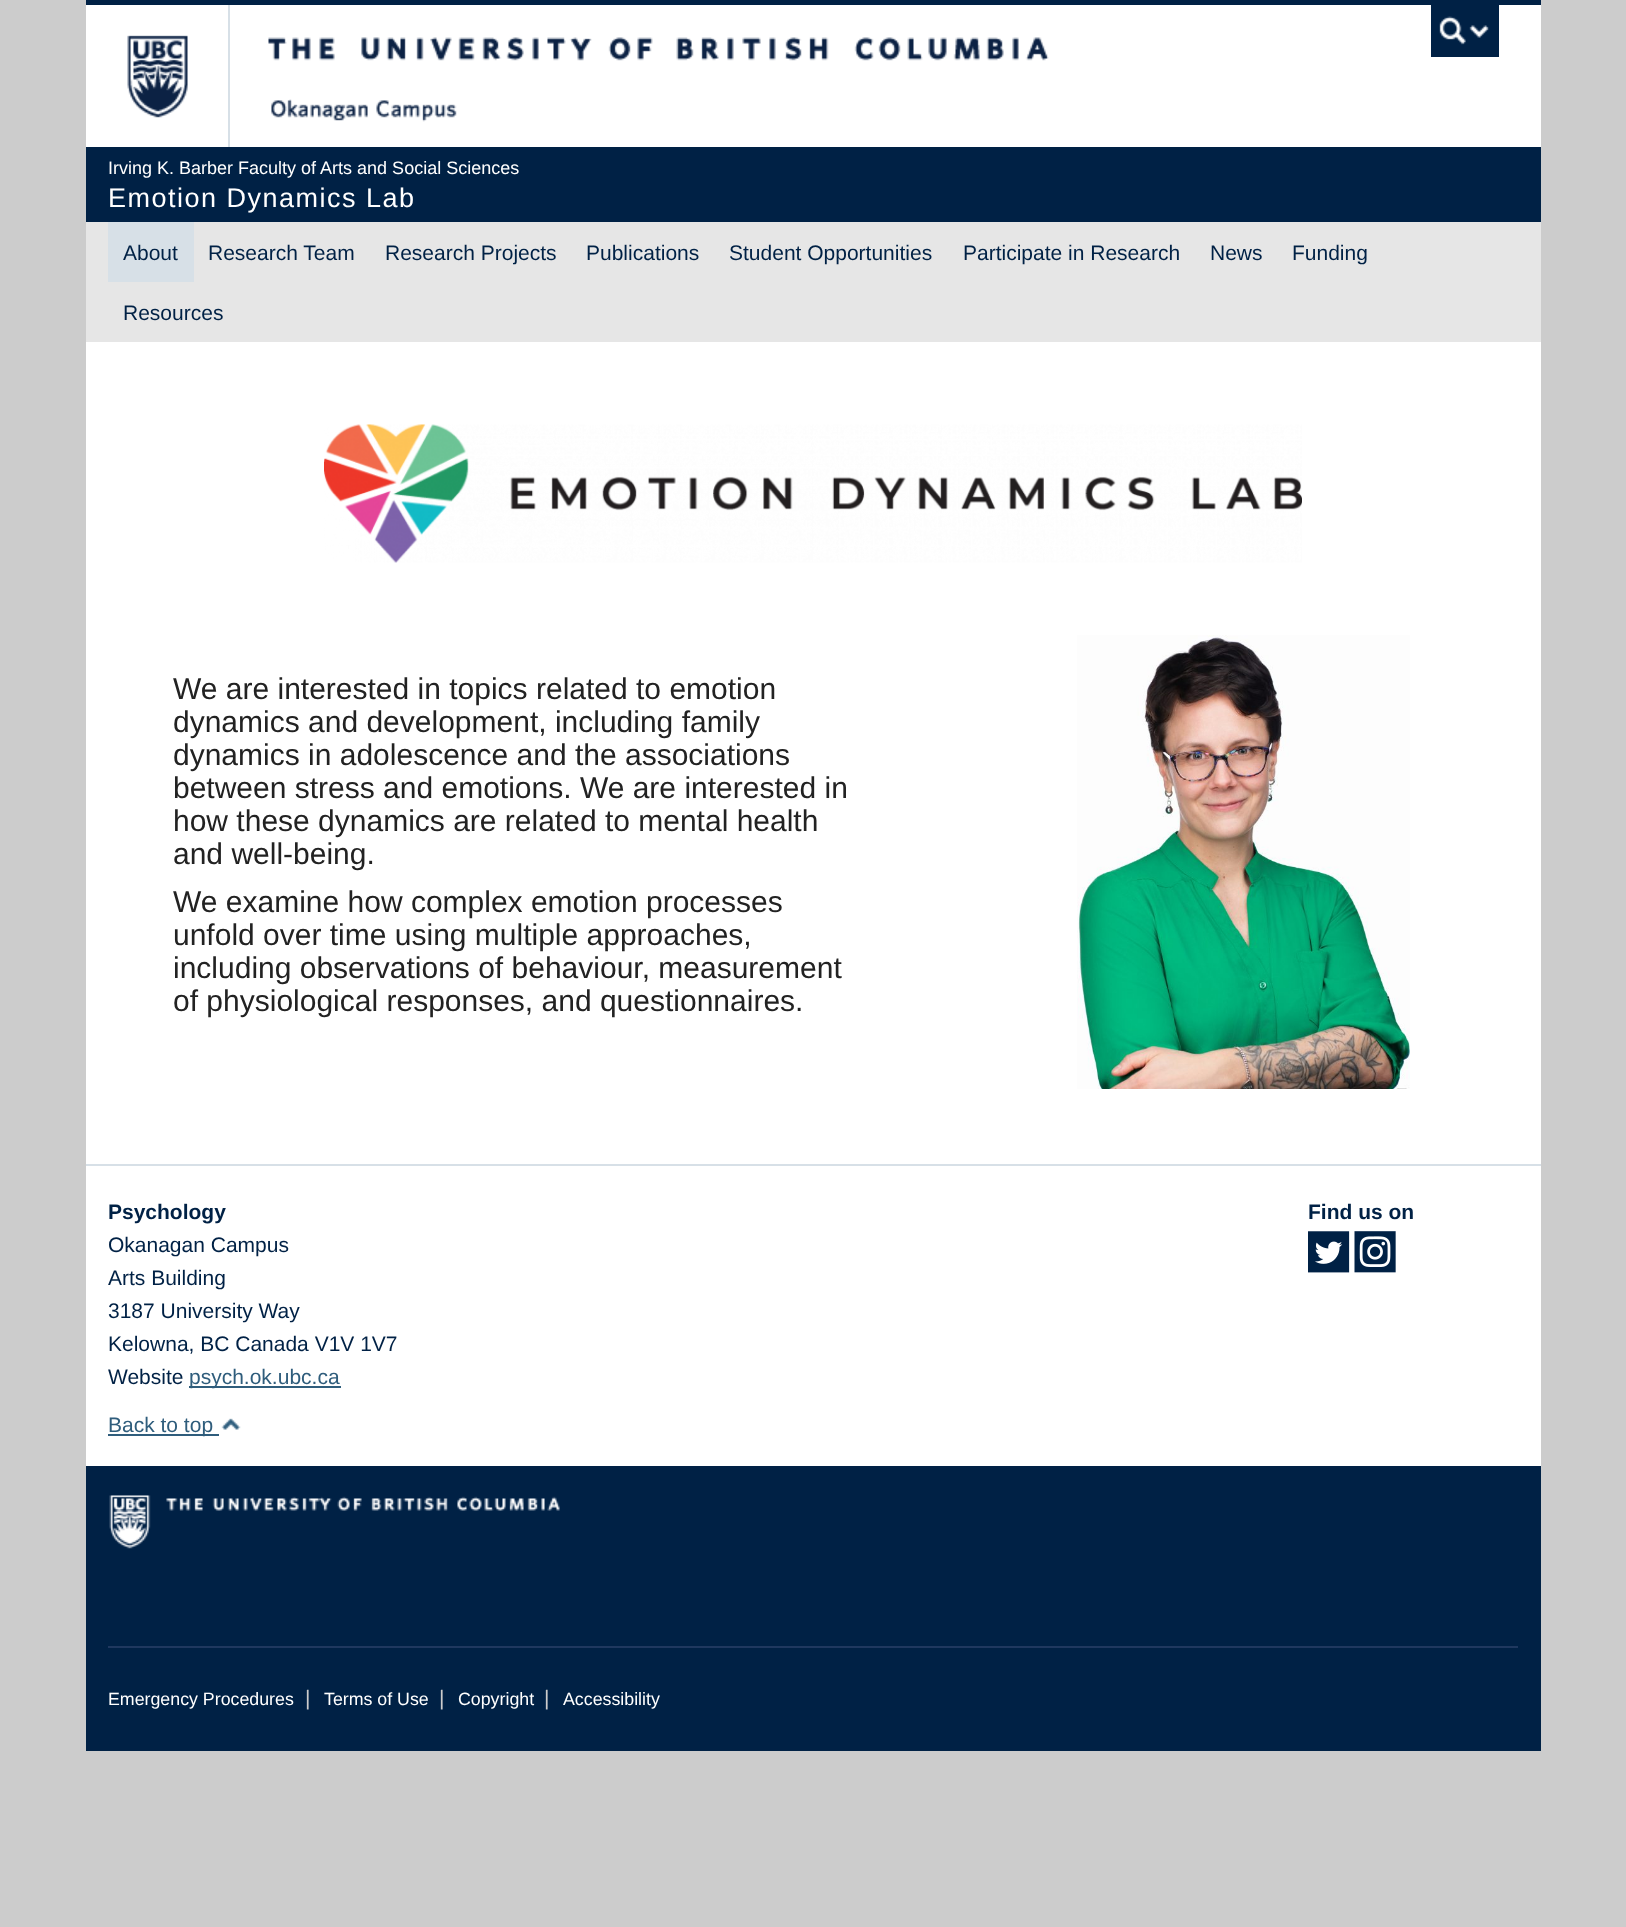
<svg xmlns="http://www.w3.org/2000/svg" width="1626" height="1927">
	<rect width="100%" height="100%" fill="#CCCCCC" />
	<rect x="86" y="5" width="1455" height="142" fill="#FFFFFF" />
	<rect x="86" y="0" width="1455" height="5" fill="#002145" />
	<image x="127" y="35" width="61" height="83" href="assets/img1.png" />
	<image x="268" y="37" width="781" height="24" href="assets/img2.png" />
	<rect x="228" y="5" width="2" height="142" fill="#D7E0E7" />
	<rect x="1431" y="5" width="68" height="52" fill="#002145" />
	<image x="1439" y="16" width="50" height="29" href="assets/img3.png" />
	<image x="271" y="99" width="186" height="23" href="assets/img4.png" />
	<rect x="86" y="147" width="1455" height="75" fill="#002145" />
	<text x="108" y="174" font-family="Liberation Sans" font-size="18" fill="#FFFFFF">Irving K. Barber Faculty of Arts and Social Sciences</text>
	<text x="108" y="207" font-family="Liberation Sans" font-size="27" letter-spacing="1.5" fill="#FFFFFF">Emotion Dynamics Lab</text>
	<rect x="86" y="222" width="1455" height="120" fill="#E6E6E6" />
	<rect x="108" y="222" width="86" height="60" fill="#D7E0E7" />
	<g font-family="Liberation Sans" font-size="21" fill="#002145">
		<text x="123" y="260">About</text>
		<text x="208" y="260">Research Team</text>
		<text x="385" y="260">Research Projects</text>
		<text x="586" y="260">Publications</text>
		<text x="729" y="260">Student Opportunities</text>
		<text x="963" y="260">Participate in Research</text>
		<text x="1210" y="260">News</text>
		<text x="1292" y="260">Funding</text>
		<text x="123" y="320">Resources</text>
	</g>
	<rect x="86" y="342" width="1455" height="822" fill="#FFFFFF" />
	<image x="324" y="424" width="978" height="139" href="assets/img5.png" />
	<g font-family="Liberation Sans" font-size="30" fill="#222222">
		<text x="173" y="699">We are interested in topics related to emotion</text>
		<text x="173" y="732">dynamics and development, including family</text>
		<text x="173" y="765">dynamics in adolescence and the associations</text>
		<text x="173" y="798">between stress and emotions. We are interested in</text>
		<text x="173" y="831">how these dynamics are related to mental health</text>
		<text x="173" y="864">and well-being.</text>
		<text x="173" y="912">We examine how complex emotion processes</text>
		<text x="173" y="945">unfold over time using multiple approaches,</text>
		<text x="173" y="978">including observations of behaviour, measurement</text>
		<text x="173" y="1011">of physiological responses, and questionnaires.</text>
	</g>
	<image x="1077" y="635" width="333" height="454" href="assets/img6.png" />
	<rect x="86" y="1466" width="1455" height="285" fill="#002145" />
	<rect x="86" y="1166" width="1455" height="300" fill="#FFFFFF" />
	<rect x="86" y="1164" width="1455" height="2" fill="#D7E0E7" />
	<text x="108" y="1219" font-family="Liberation Sans" font-size="21" font-weight="700" fill="#002145">Psychology</text>
	<g font-family="Liberation Sans" font-size="21" fill="#002145">
		<text x="108" y="1252">Okanagan Campus</text>
		<text x="108" y="1285">Arts Building</text>
		<text x="108" y="1318">3187 University Way</text>
		<text x="108" y="1351">Kelowna, BC Canada V1V 1V7</text>
		<text x="108" y="1384">Website</text>
	</g>
	<rect x="189" y="1386" width="152" height="2" fill="#2F5D7C" />
	<text x="189" y="1384" font-family="Liberation Sans" font-size="21" fill="#2F5D7C">psych.ok.ubc.ca</text>
	<text x="1308" y="1219" font-family="Liberation Sans" font-size="21" font-weight="700" fill="#002145">Find us on</text>
	<image x="1308" y="1231" width="42" height="42" href="assets/img7.png" />
	<image x="1354" y="1231" width="42" height="42" href="assets/img8.png" />
	<rect x="108" y="1434" width="111" height="2" fill="#2F5D7C" />
	<text x="108" y="1432" font-family="Liberation Sans" font-size="21" fill="#2F5D7C">Back to top</text>
	<image x="221" y="1418" width="20" height="12" href="assets/img9.png" />
	<image x="109" y="1495" width="451" height="54" href="assets/img10.png" />
	<rect x="108" y="1646" width="1410" height="2" fill="#1F385F" />
	<text x="108" y="1705" font-family="Liberation Sans" font-size="17.8" fill="#FFFFFF">Emergency Procedures</text>
	<text x="305" y="1705" font-family="Liberation Sans" font-size="21" fill="#CCCCCC">|</text>
	<text x="324" y="1705" font-family="Liberation Sans" font-size="17.8" fill="#FFFFFF">Terms of Use</text>
	<text x="439" y="1705" font-family="Liberation Sans" font-size="21" fill="#CCCCCC">|</text>
	<text x="458" y="1705" font-family="Liberation Sans" font-size="17.8" fill="#FFFFFF">Copyright</text>
	<text x="544" y="1705" font-family="Liberation Sans" font-size="21" fill="#CCCCCC">|</text>
	<text x="563" y="1705" font-family="Liberation Sans" font-size="17.8" fill="#FFFFFF">Accessibility</text>
</svg>
